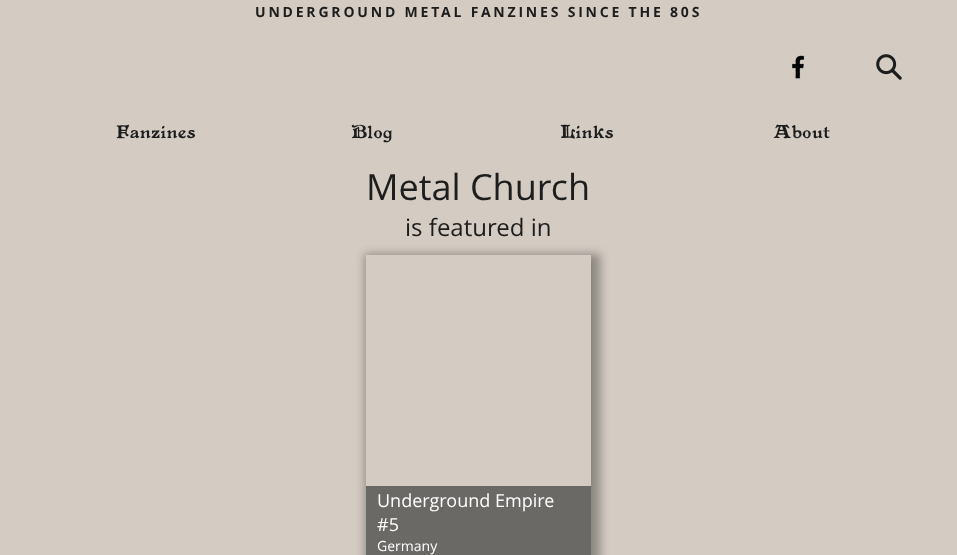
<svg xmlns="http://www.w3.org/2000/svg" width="957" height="555">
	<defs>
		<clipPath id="clip1"><path d="M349 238H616V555H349ZM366 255H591V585H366Z" clip-rule="evenodd" /></clipPath>
	</defs>
	<rect width="100%" height="100%" fill="#D4CBC2" />
	<text x="255" y="17" font-family="Open Sans" font-size="14" font-weight="700" letter-spacing="2.8" fill="#1D1D1D">UNDERGROUND METAL FANZINES SINCE THE 80S</text>
	<image x="792" y="55" width="13" height="24" href="assets/img1.png" />
	<image x="876" y="54" width="26" height="26" href="assets/img2.png" />
	<g font-family="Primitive" font-size="18" fill="#1D1D1D">
		<text x="116" y="138">Fanzines</text>
		<text x="351" y="138">Blog</text>
		<text x="560" y="138">Links</text>
		<text x="773" y="138">About</text>
	</g>
	<text x="366" y="200" font-family="Open Sans" font-size="36" fill="#1D1D1D">Metal Church</text>
	<text x="405" y="236" font-family="Open Sans" font-size="24" fill="#1D1D1D">is featured in</text>
	<g clip-path="url(#clip1)">
		<rect x="365" y="254" width="235" height="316" fill="#000000" fill-opacity="0.33" filter="blur(5px)" />
	</g>
	<rect x="366" y="486" width="225" height="69" fill="#6B6966" />
	<g font-family="Open Sans" font-size="18" fill="#FFFFFF">
		<text x="377" y="507">Underground Empire</text>
		<text x="377" y="531">#5</text>
	</g>
	<text x="377" y="551" font-family="Open Sans" font-size="14" fill="#FFFFFF">Germany</text>
</svg>
